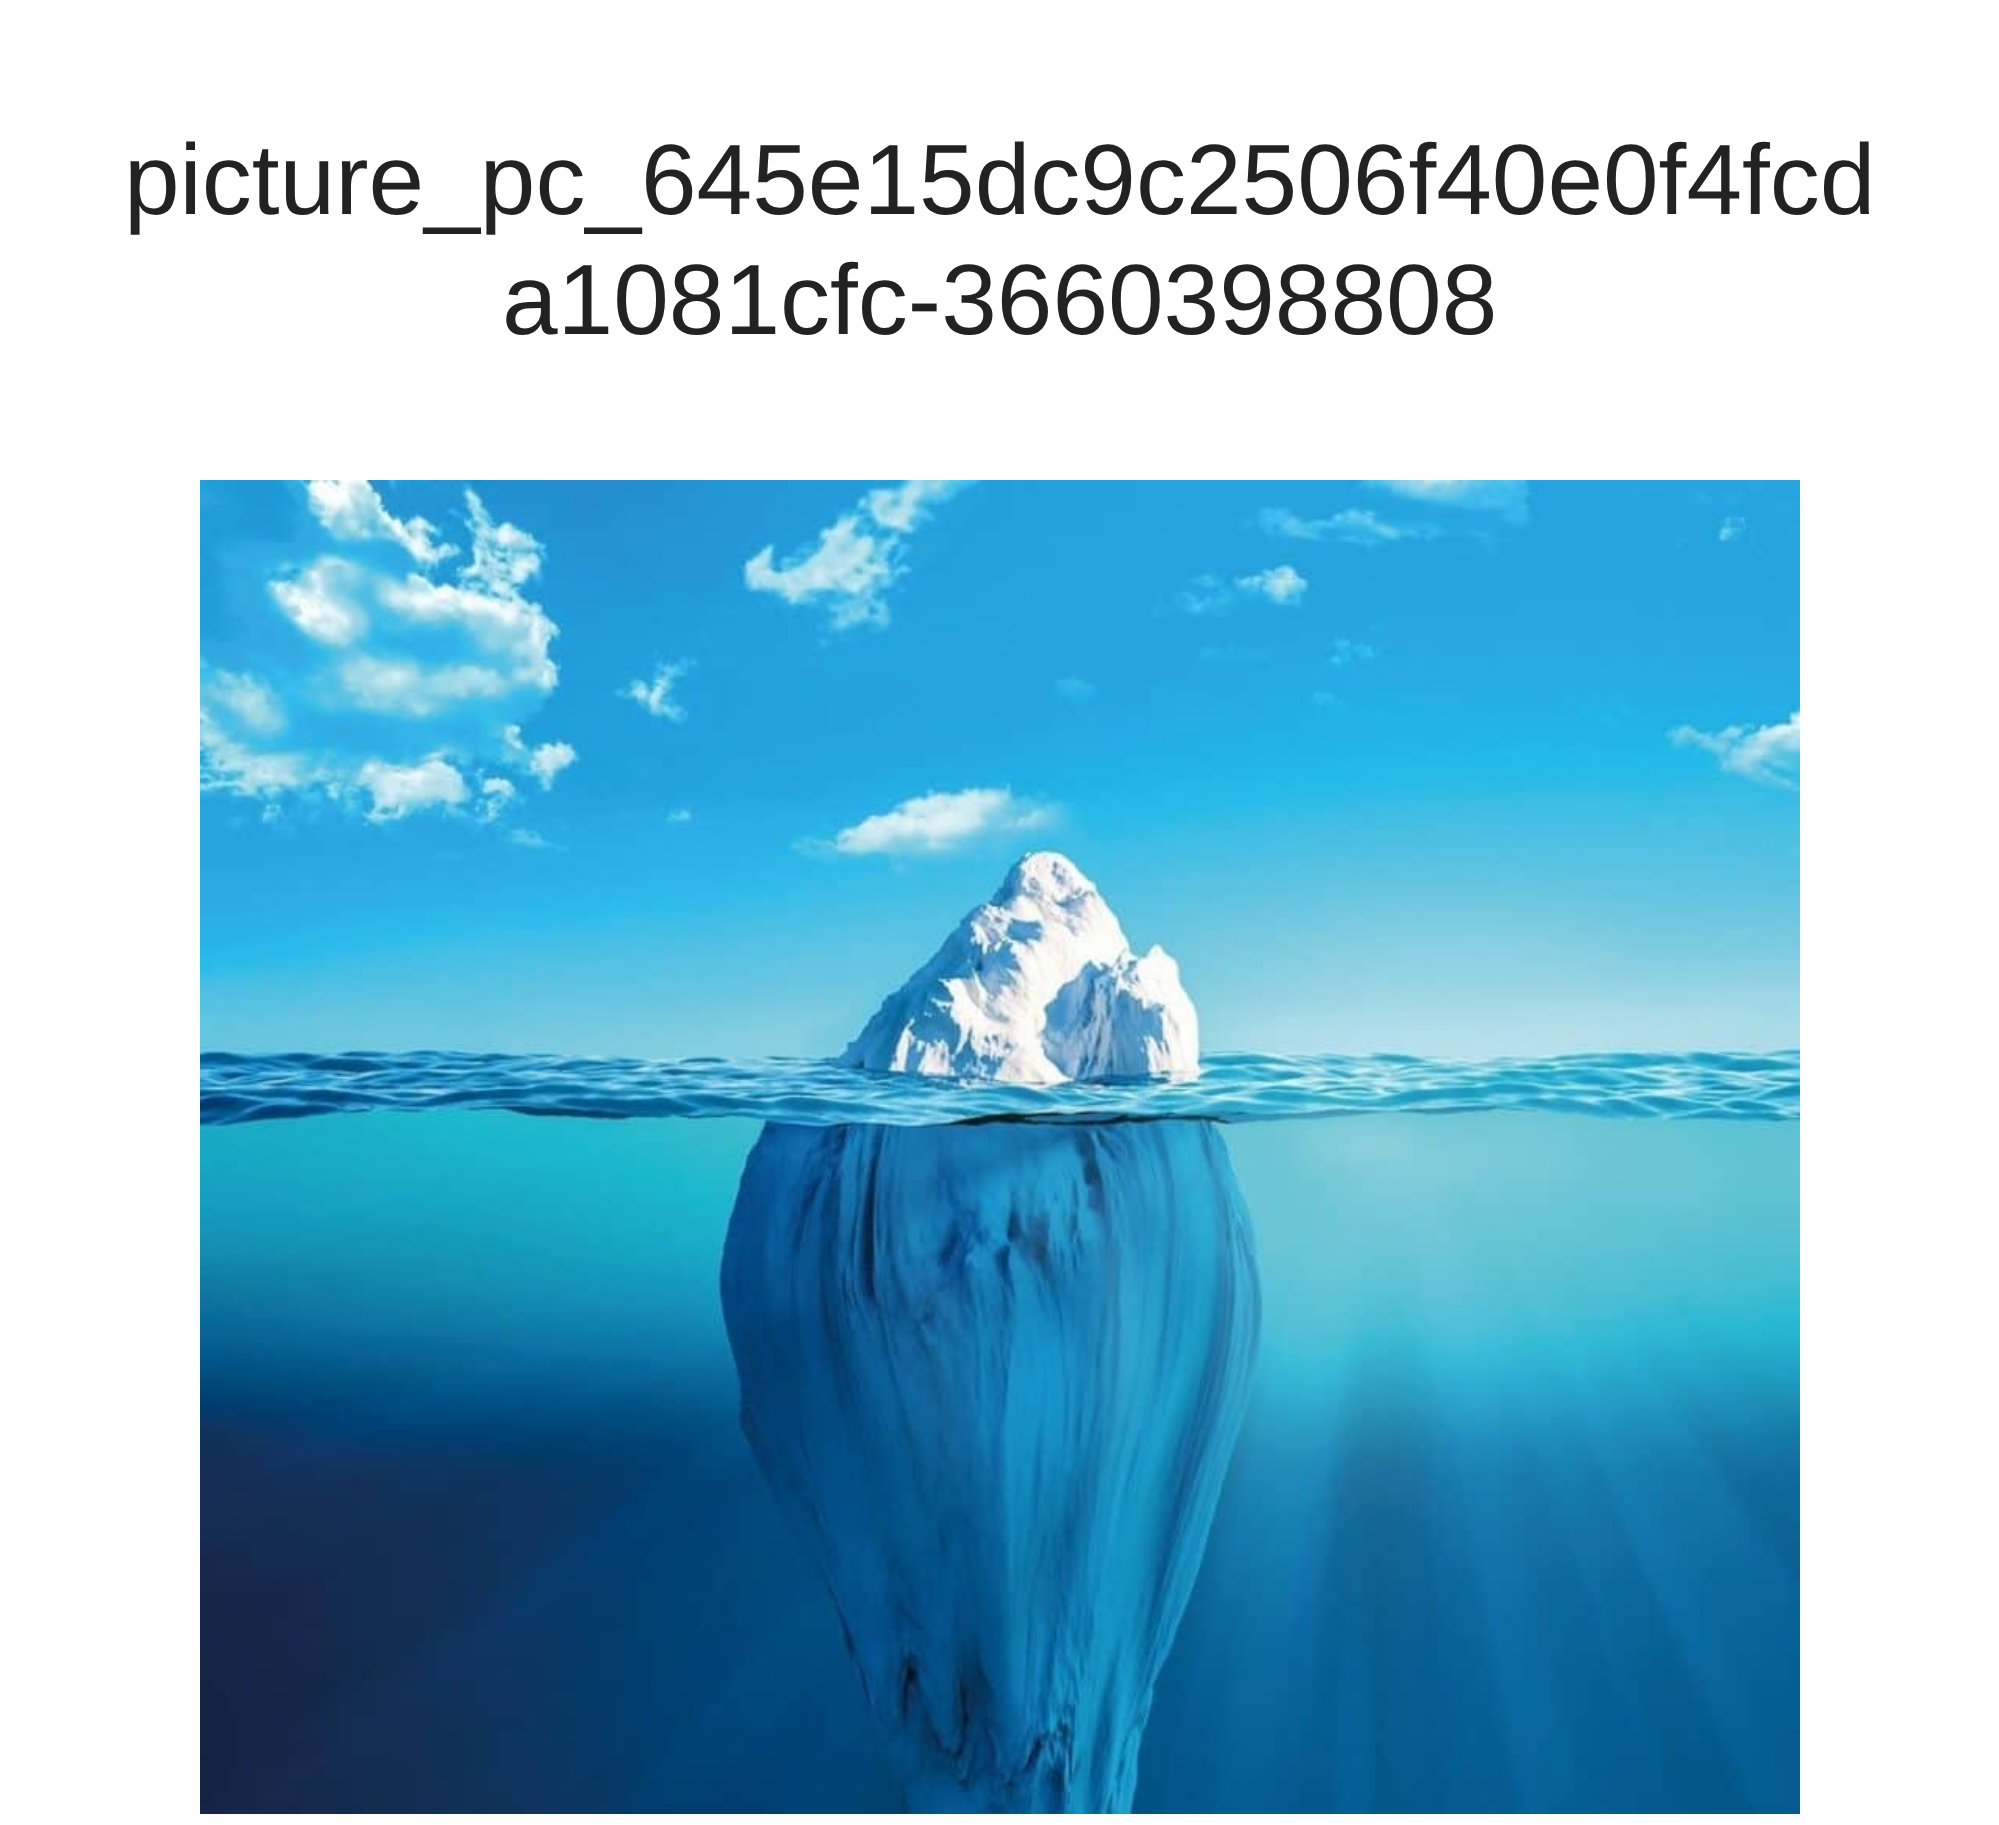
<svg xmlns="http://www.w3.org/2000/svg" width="1999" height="1825">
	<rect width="100%" height="100%" fill="#FFFFFF" />
	<g font-family="Liberation Sans" font-size="100" fill="#222222">
		<text x="124" y="214">picture_pc_645e15dc9c2506f40e0f4fcd</text>
		<text x="502" y="334">a1081cfc-3660398808</text>
	</g>
	<image x="200" y="480" width="1600" height="1334" href="assets/img1.png" />
</svg>
